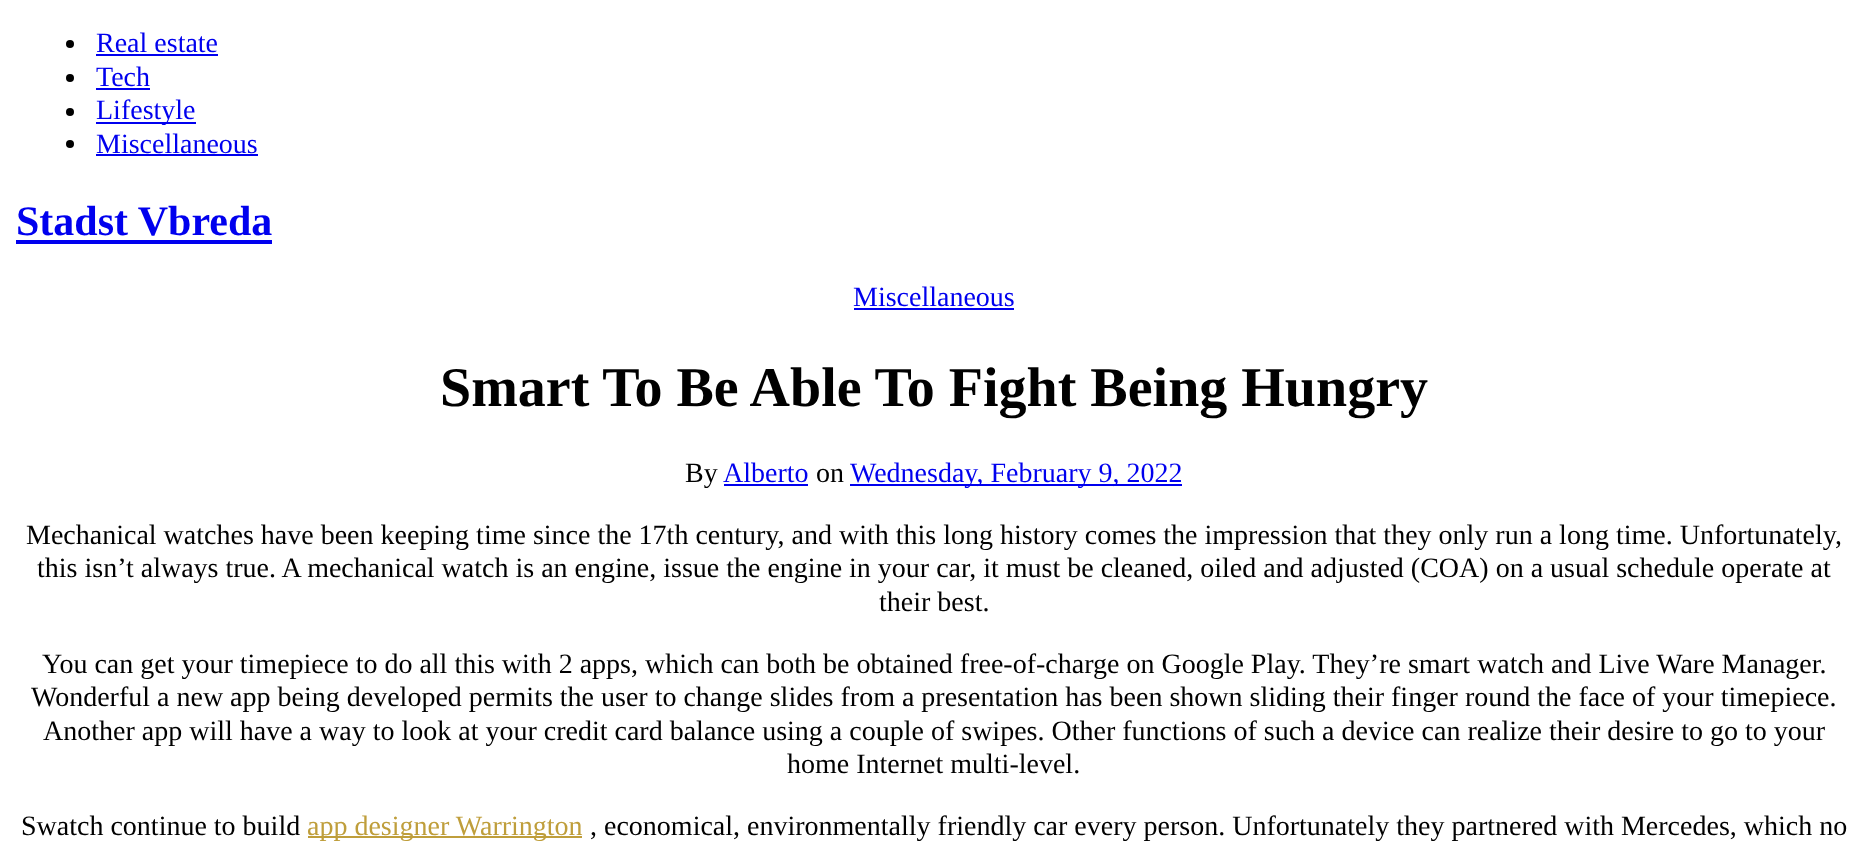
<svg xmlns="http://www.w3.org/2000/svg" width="1868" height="855">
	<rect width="100%" height="100%" fill="#FFFFFF" />
	<circle cx="70" cy="44" r="4" fill="#000000" />
	<text x="96" y="52" font-family="Liberation Serif" font-size="28" fill="#0000EE">Real estate</text>
	<rect x="96" y="54" width="122" height="2" fill="#0000EE" />
	<circle cx="70" cy="78" r="4" fill="#000000" />
	<text x="96" y="86" font-family="Liberation Serif" font-size="28" fill="#0000EE">Tech</text>
	<rect x="96" y="88" width="54" height="2" fill="#0000EE" />
	<circle cx="70" cy="112" r="4" fill="#000000" />
	<rect x="96" y="122" width="100" height="2" fill="#0000EE" />
	<text x="96" y="119" font-family="Liberation Serif" font-size="28" fill="#0000EE">Lifestyle</text>
	<circle cx="70" cy="144" r="4" fill="#000000" />
	<text x="96" y="153" font-family="Liberation Serif" font-size="28" fill="#0000EE">Miscellaneous</text>
	<rect x="96" y="154" width="162" height="2" fill="#0000EE" />
	<text x="16" y="235" font-family="Liberation Serif" font-size="42" font-weight="700" fill="#0000EE">Stadst Vbreda</text>
	<rect x="16" y="240" width="256" height="4" fill="#0000EE" />
	<text x="853" y="306" font-family="Liberation Serif" font-size="28" fill="#0000EE">Miscellaneous</text>
	<rect x="854" y="308" width="160" height="2" fill="#0000EE" />
	<text x="440" y="406" font-family="Liberation Serif" font-size="56" font-weight="700" fill="#000000">Smart To Be Able To Fight Being Hungry</text>
	<text x="685" y="482" font-family="Liberation Serif" font-size="28" fill="#000000">By</text>
	<rect x="724" y="484" width="84" height="2" fill="#0000EE" />
	<text x="723" y="482" font-family="Liberation Serif" font-size="28" fill="#0000EE">Alberto</text>
	<text x="816" y="482" font-family="Liberation Serif" font-size="28" fill="#000000">on</text>
	<rect x="850" y="484" width="332" height="2" fill="#0000EE" />
	<text x="850" y="482" font-family="Liberation Serif" font-size="28" fill="#0000EE">Wednesday, February 9, 2022</text>
	<g font-family="Liberation Serif" font-size="28" fill="#000000">
		<text x="26" y="544">Mechanical watches have been keeping time since the 17th century, and with this long history comes the impression that they only run a long time. Unfortunately,</text>
		<text x="37" y="577">this isn’t always true. A mechanical watch is an engine, issue the engine in your car, it must be cleaned, oiled and adjusted (COA) on a usual schedule operate at</text>
		<text x="879" y="611">their best.</text>
		<text x="42" y="673">You can get your timepiece to do all this with 2 apps, which can both be obtained free-of-charge on Google Play. They’re smart watch and Live Ware Manager.</text>
		<text x="31" y="706">Wonderful a new app being developed permits the user to change slides from a presentation has been shown sliding their finger round the face of your timepiece.</text>
		<text x="43" y="740">Another app will have a way to look at your credit card balance using a couple of swipes. Other functions of such a device can realize their desire to go to your</text>
		<text x="787" y="773">home Internet multi-level.</text>
		<text x="21" y="835">Swatch continue to build</text>
	</g>
	<rect x="308" y="836" width="274" height="2" fill="#BF9E3B" />
	<text x="307" y="835" font-family="Liberation Serif" font-size="28" fill="#BF9E3B">app designer Warrington</text>
	<text x="590" y="835" font-family="Liberation Serif" font-size="28" fill="#000000">, economical, environmentally friendly car every person. Unfortunately they partnered with Mercedes, which no</text>
</svg>
